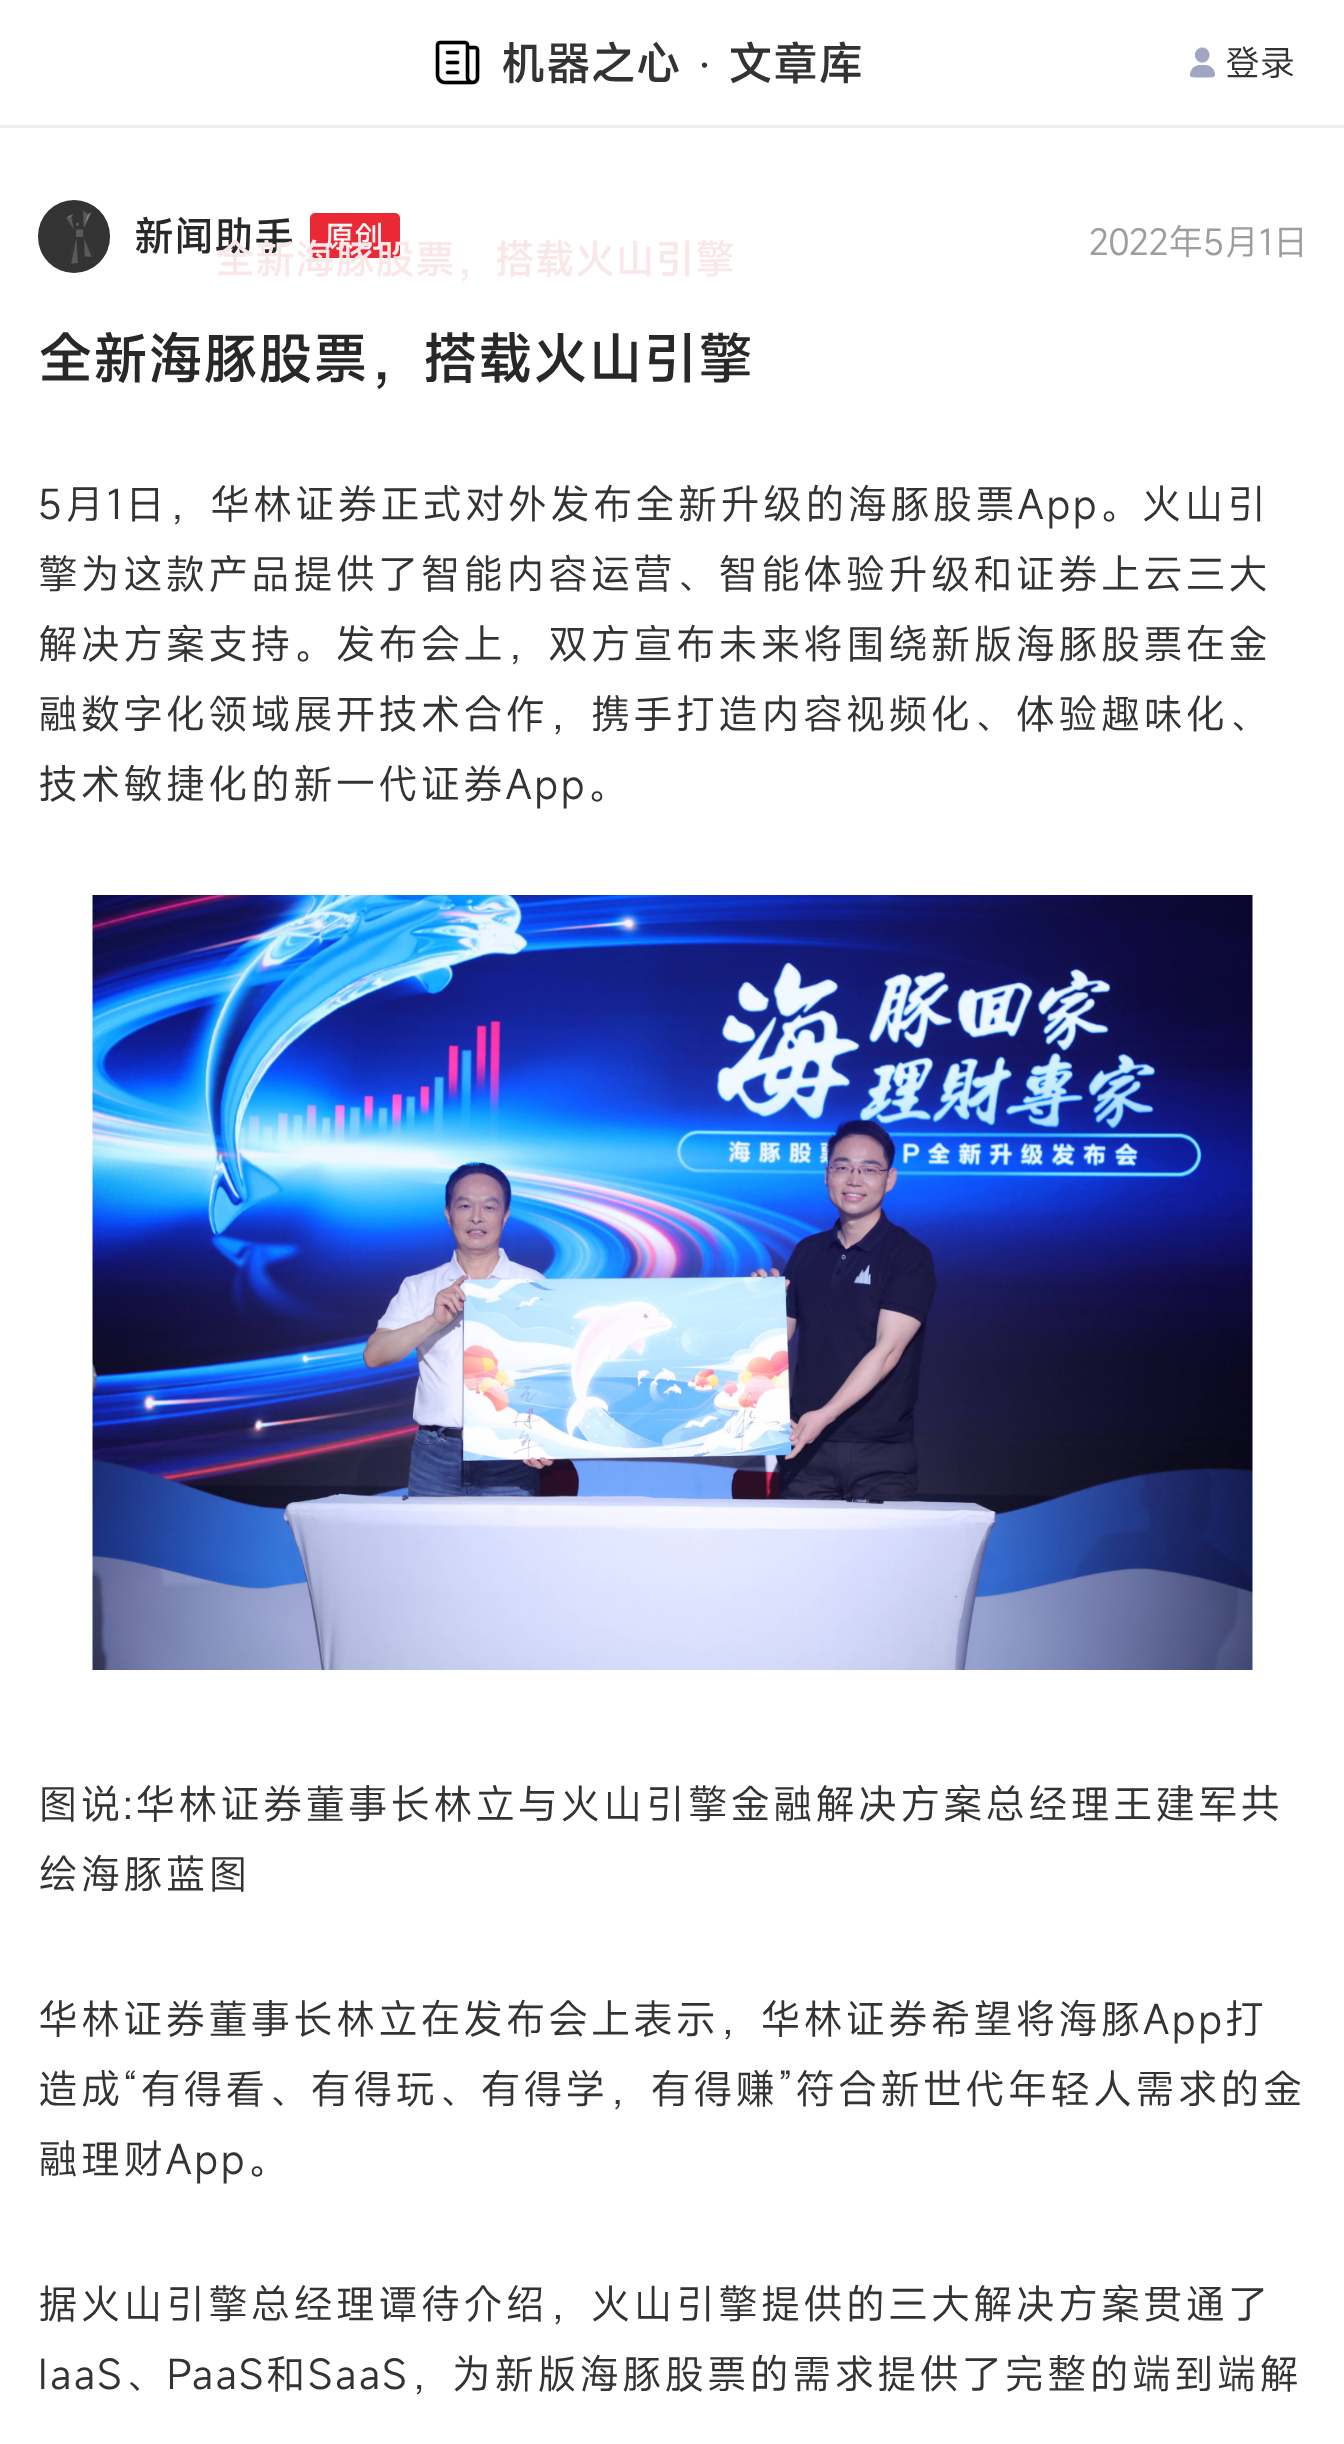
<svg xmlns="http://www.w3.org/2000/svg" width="1344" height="2444">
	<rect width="100%" height="100%" fill="#FFFFFF" />
	<rect x="0" y="125" width="1344" height="3" fill="#EBECF1" />
	<image x="435" y="40" width="45" height="45" href="assets/img1.png" />
	<text x="501" y="80" font-family="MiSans" font-size="45" font-weight="500" fill="#333333">机器之心</text>
	<text x="697" y="80" font-family="Liberation Serif" font-size="45" fill="#333333">·</text>
	<text x="728" y="80" font-family="MiSans" font-size="45" font-weight="500" fill="#333333">文章库</text>
	<image x="1190" y="47" width="25" height="31" href="assets/img2.png" />
	<text x="1225" y="76" font-family="MiSans" font-size="35" fill="#333333">登录</text>
	<rect x="38" y="200" width="72" height="73" rx="36" fill="#333333" />
	<image x="66" y="210" width="35" height="55" href="assets/img3.png" />
	<text x="134" y="251" font-family="MiSans" font-size="40" font-weight="500" fill="#282828">新闻助手</text>
	<rect x="310" y="213" width="90" height="45" rx="5" fill="#EB2835" />
	<text x="324" y="248" font-family="MiSans" font-size="30" font-weight="500" fill="#F6F6F6">原创</text>
	<text x="1089" y="255" font-family="MiSans" font-size="35" fill="#9D9D9D">2022年5月1日</text>
	<text x="38" y="379" font-family="MiSans" font-size="55" font-weight="500" fill="#282828">全新海豚股票，搭载火山引擎</text>
	<g font-family="MiSans" font-size="40" letter-spacing="2.5" fill="#333333">
		<text x="38" y="519">5月1日，华林证券正式对外发布全新升级的海豚股票App。火山引</text>
		<text x="38" y="589">擎为这款产品提供了智能内容运营、智能体验升级和证券上云三大</text>
		<text x="38" y="659">解决方案支持。发布会上，双方宣布未来将围绕新版海豚股票在金</text>
		<text x="38" y="729">融数字化领域展开技术合作，携手打造内容视频化、体验趣味化、</text>
		<text x="38" y="799">技术敏捷化的新一代证券App。</text>
	</g>
	<image x="92" y="895" width="1161" height="775" href="assets/img4.png" />
	<g font-family="MiSans" font-size="40" letter-spacing="2.5" fill="#333333">
		<text x="38" y="1819">图说:华林证券董事长林立与火山引擎金融解决方案总经理王建军共</text>
		<text x="38" y="1889">绘海豚蓝图</text>
		<text x="38" y="2034">华林证券董事长林立在发布会上表示，华林证券希望将海豚App打</text>
		<text x="38" y="2104">造成“有得看、有得玩、有得学，有得赚”符合新世代年轻人需求的金</text>
		<text x="38" y="2174">融理财App。</text>
		<text x="38" y="2319">据火山引擎总经理谭待介绍，火山引擎提供的三大解决方案贯通了</text>
		<text x="38" y="2389">IaaS、PaaS和SaaS，为新版海豚股票的需求提供了完整的端到端解</text>
	</g>
	<text x="215" y="274" font-family="MiSans" font-size="40" font-weight="500" fill="#FAE8E9">全新海豚股票，搭载火山引擎</text>
</svg>
